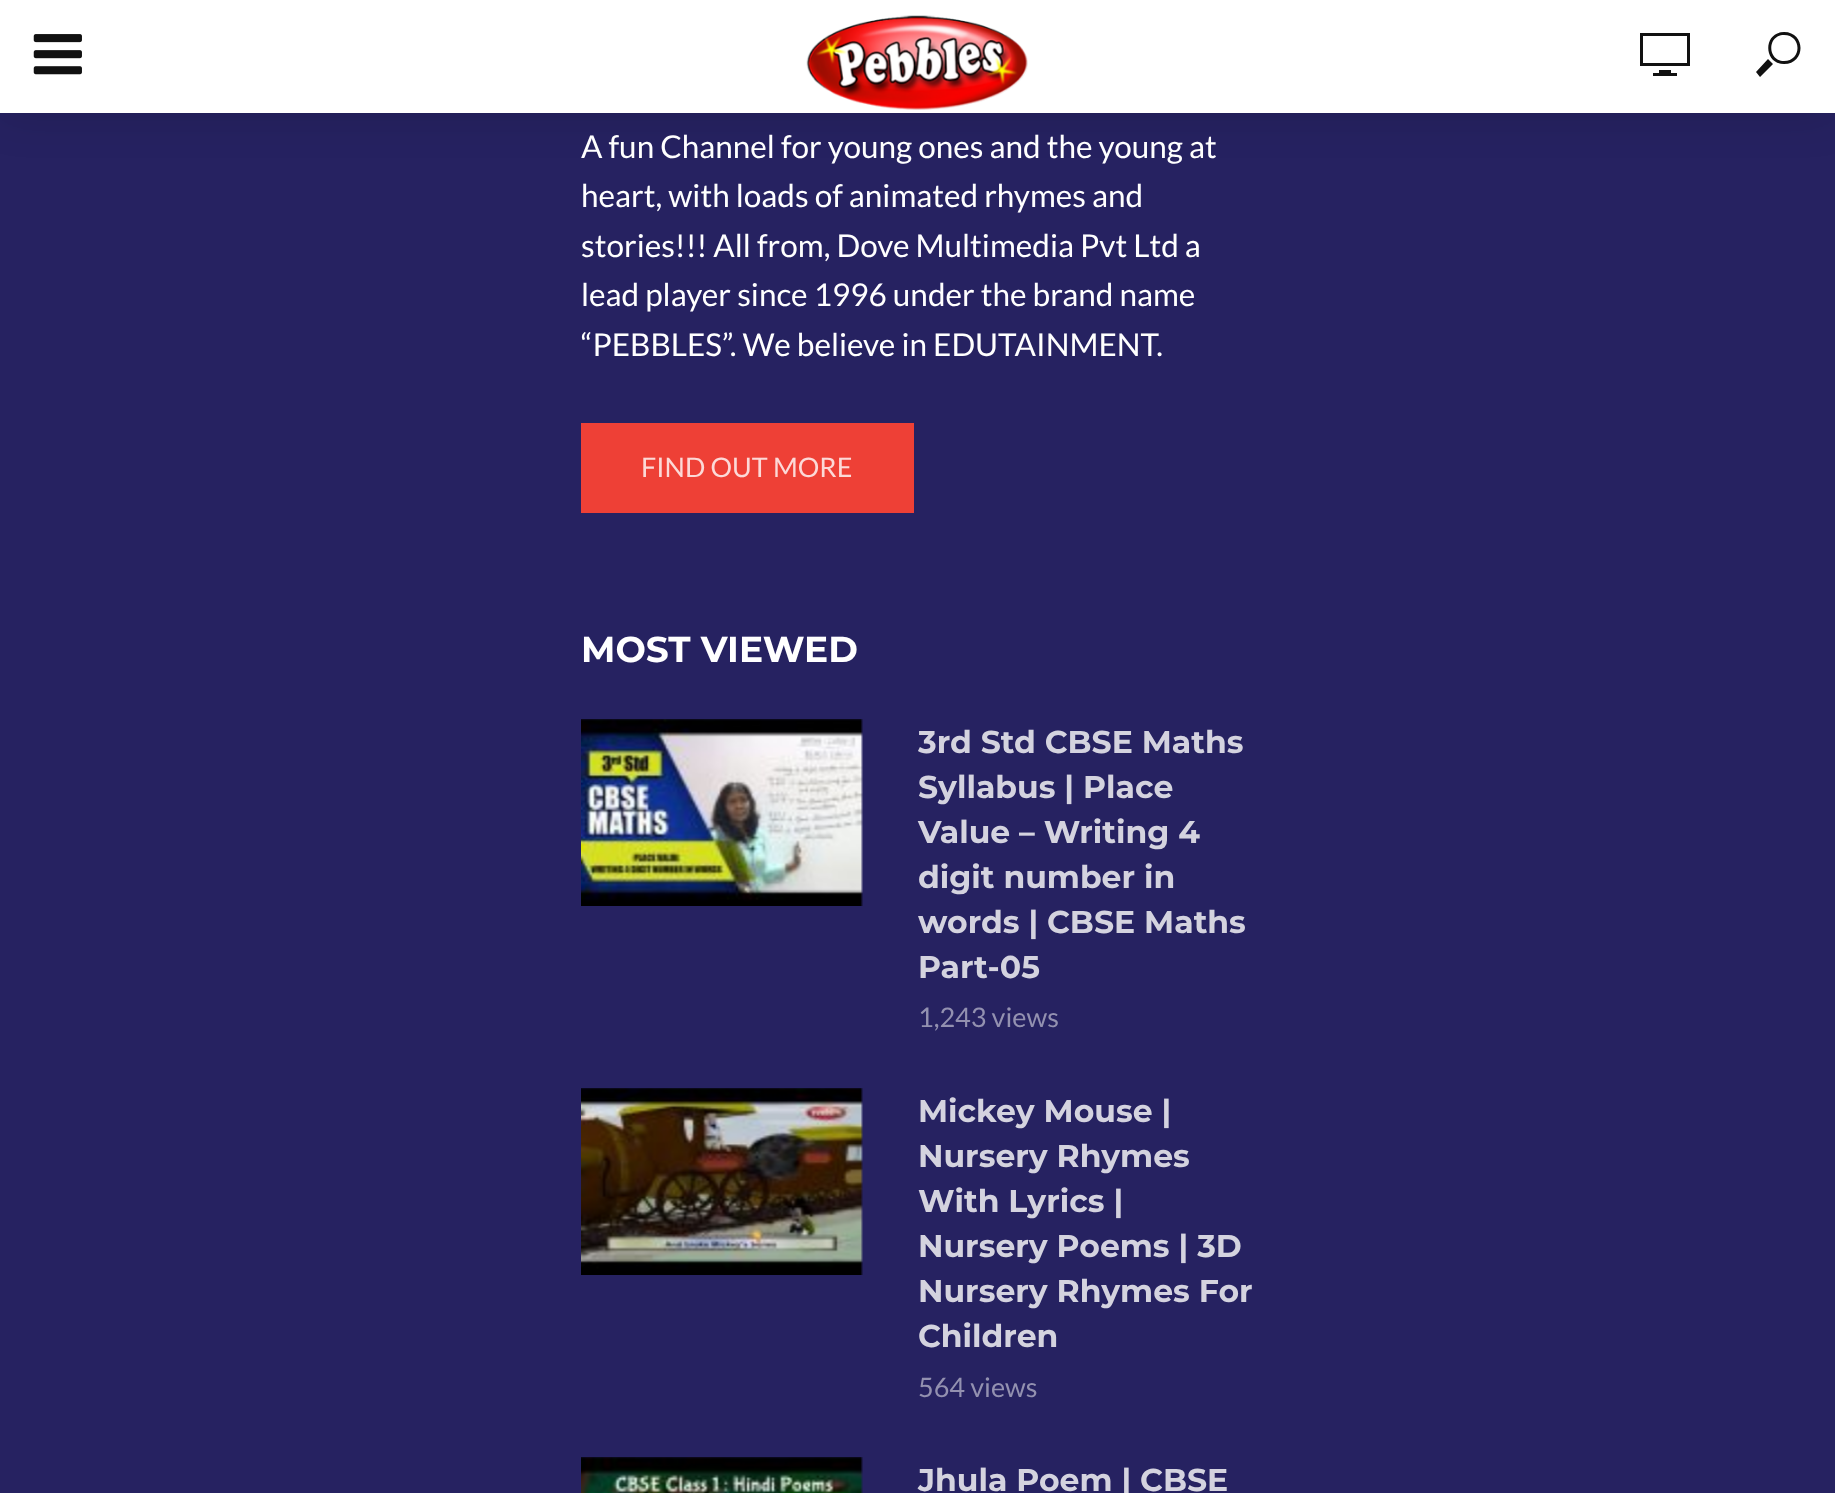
<svg xmlns="http://www.w3.org/2000/svg" width="1835" height="1493">
	<rect width="100%" height="100%" fill="#262261" />
	<rect x="0" y="0" width="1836" height="113" fill="#000000" fill-opacity="0.15" filter="blur(22.5px)" />
	<rect x="0" y="0" width="1835" height="113" fill="#FFFFFF" />
	<image x="33" y="34" width="49" height="41" href="assets/img1.png" />
	<image x="806" y="15" width="222" height="95" href="assets/img2.png" />
	<path d="M1640 66H1690V33H1640ZM1643 36H1687V63H1643ZM1659 70V73H1653V76H1677V73H1671V70Z" fill="#111111" />
	<path d="M1784 32C1763 32 1763 64 1784 64C1806 64 1806 32 1784 32ZM1784 61C1767 61 1767 35 1784 35C1802 35 1802 61 1784 61ZM1760 77L1756 72L1768 59L1773 64Z" fill="#111111" />
	<g font-family="Lato" font-size="31.5" fill="#FFFFFF">
		<text x="581" y="158">A fun Channel for young ones and the young at</text>
		<text x="581" y="207">heart, with loads of animated rhymes and</text>
		<text x="581" y="257">stories!!! All from, Dove Multimedia Pvt Ltd a</text>
		<text x="581" y="306">lead player since 1996 under the brand name</text>
		<text x="581" y="356">“PEBBLES”. We believe in EDUTAINMENT.</text>
	</g>
	<rect x="581" y="423" width="333" height="90" fill="#EE4036" />
	<text x="641" y="477" font-family="Lato" font-size="27" fill="#FCD9D7">FIND OUT MORE</text>
	<text x="581" y="662" font-family="Montserrat" font-size="36" font-weight="700" fill="#FFFFFF">MOST VIEWED</text>
	<image x="581" y="719" width="282" height="187" href="assets/img3.png" />
	<g font-family="Montserrat" font-size="31.5" font-weight="700" fill="#D4D3DF">
		<text x="918" y="753">3rd Std CBSE Maths</text>
		<text x="918" y="798">Syllabus | Place</text>
		<text x="918" y="843">Value – Writing 4</text>
		<text x="918" y="888">digit number in</text>
		<text x="918" y="933">words | CBSE Maths</text>
		<text x="918" y="978">Part-05</text>
	</g>
	<text x="918" y="1027" font-family="Lato" font-size="27" fill="#9391B0">1,243 views</text>
	<image x="581" y="1088" width="282" height="187" href="assets/img4.png" />
	<g font-family="Montserrat" font-size="31.5" font-weight="700" fill="#D4D3DF">
		<text x="918" y="1122">Mickey Mouse |</text>
		<text x="918" y="1167">Nursery Rhymes</text>
		<text x="918" y="1212">With Lyrics |</text>
		<text x="918" y="1257">Nursery Poems | 3D</text>
		<text x="918" y="1302">Nursery Rhymes For</text>
		<text x="918" y="1347">Children</text>
	</g>
	<text x="918" y="1397" font-family="Lato" font-size="27" fill="#9391B0">564 views</text>
	<image x="581" y="1457" width="282" height="36" href="assets/img5.png" />
	<text x="918" y="1491" font-family="Montserrat" font-size="31.5" font-weight="700" fill="#D4D3DF">Jhula Poem | CBSE</text>
</svg>
